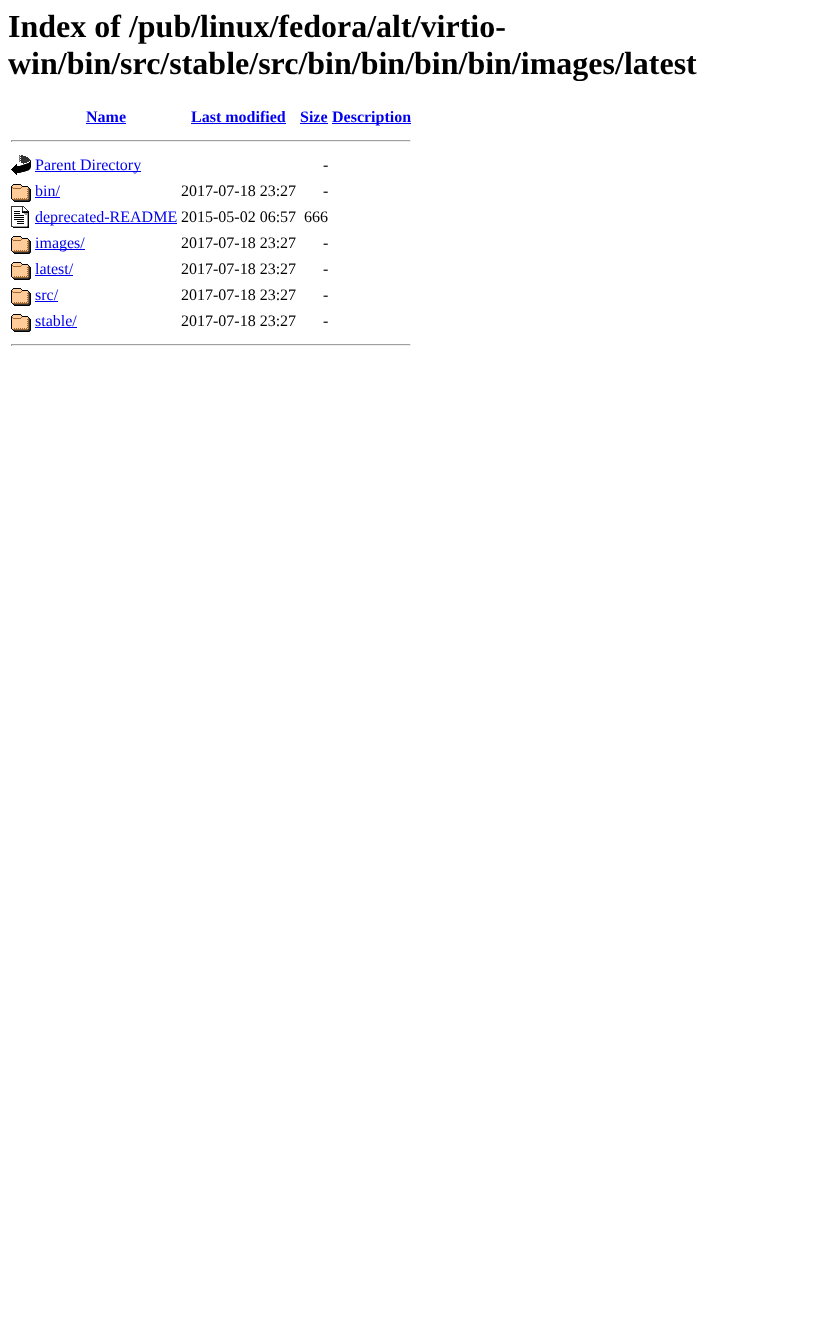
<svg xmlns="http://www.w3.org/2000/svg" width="826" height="1339">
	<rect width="100%" height="100%" fill="#FFFFFF" />
	<g font-family="Liberation Serif" font-size="32" font-weight="700" fill="#000000">
		<text x="8" y="37">Index of /pub/linux/fedora/alt/virtio-</text>
		<text x="8" y="74">win/bin/src/stable/src/bin/bin/bin/bin/images/latest</text>
	</g>
	<text x="86" y="122" font-family="Liberation Serif" font-size="16" font-weight="700" fill="#0000EE">Name</text>
	<rect x="86" y="123" width="40" height="1" fill="#0000EE" />
	<text x="191" y="122" font-family="Liberation Serif" font-size="16" font-weight="700" fill="#0000EE">Last modified</text>
	<rect x="191" y="123" width="95" height="1" fill="#0000EE" />
	<text x="300" y="122" font-family="Liberation Serif" font-size="16" font-weight="700" fill="#0000EE">Size</text>
	<rect x="300" y="123" width="28" height="1" fill="#0000EE" />
	<rect x="332" y="123" width="79" height="1" fill="#0000EE" />
	<text x="332" y="122" font-family="Liberation Serif" font-size="16" font-weight="700" fill="#0000EE">Description</text>
	<rect x="11" y="140" width="400" height="1" fill="#9F9F9F" />
	<rect x="410" y="140" width="1" height="2" fill="#EEEEEE" />
	<rect x="11" y="141" width="400" height="1" fill="#EEEEEE" />
	<rect x="11" y="140" width="1" height="2" fill="#9F9F9F" />
	<image x="11" y="155" width="20" height="20" href="assets/img1.png" />
	<rect x="35" y="171" width="106" height="1" fill="#0000EE" />
	<text x="35" y="170" font-family="Liberation Serif" font-size="16" fill="#0000EE">Parent Directory</text>
	<text x="323" y="170" font-family="Liberation Serif" font-size="16" fill="#000000">-</text>
	<image x="11" y="184" width="20" height="18" href="assets/img2.png" />
	<text x="35" y="196" font-family="Liberation Serif" font-size="16" fill="#0000EE">bin/</text>
	<rect x="35" y="197" width="25" height="1" fill="#0000EE" />
	<g font-family="Liberation Serif" font-size="16" fill="#000000">
		<text x="181" y="196">2017-07-18 23:27</text>
		<text x="323" y="196">-</text>
	</g>
	<image x="11" y="206" width="18" height="22" href="assets/img3.png" />
	<rect x="35" y="223" width="142" height="1" fill="#0000EE" />
	<text x="35" y="222" font-family="Liberation Serif" font-size="16" fill="#0000EE">deprecated-README</text>
	<g font-family="Liberation Serif" font-size="16" fill="#000000">
		<text x="181" y="222">2015-05-02 06:57</text>
		<text x="304" y="222">666</text>
	</g>
	<image x="11" y="236" width="20" height="18" href="assets/img2.png" />
	<rect x="35" y="249" width="50" height="1" fill="#0000EE" />
	<text x="35" y="248" font-family="Liberation Serif" font-size="16" fill="#0000EE">images/</text>
	<g font-family="Liberation Serif" font-size="16" fill="#000000">
		<text x="181" y="248">2017-07-18 23:27</text>
		<text x="323" y="248">-</text>
	</g>
	<image x="11" y="262" width="20" height="18" href="assets/img2.png" />
	<text x="35" y="274" font-family="Liberation Serif" font-size="16" fill="#0000EE">latest/</text>
	<rect x="35" y="275" width="38" height="1" fill="#0000EE" />
	<g font-family="Liberation Serif" font-size="16" fill="#000000">
		<text x="181" y="274">2017-07-18 23:27</text>
		<text x="323" y="274">-</text>
	</g>
	<image x="11" y="288" width="20" height="18" href="assets/img2.png" />
	<text x="35" y="300" font-family="Liberation Serif" font-size="16" fill="#0000EE">src/</text>
	<rect x="35" y="301" width="23" height="1" fill="#0000EE" />
	<g font-family="Liberation Serif" font-size="16" fill="#000000">
		<text x="181" y="300">2017-07-18 23:27</text>
		<text x="323" y="300">-</text>
	</g>
	<image x="11" y="314" width="20" height="18" href="assets/img2.png" />
	<text x="35" y="326" font-family="Liberation Serif" font-size="16" fill="#0000EE">stable/</text>
	<rect x="35" y="327" width="42" height="1" fill="#0000EE" />
	<g font-family="Liberation Serif" font-size="16" fill="#000000">
		<text x="181" y="326">2017-07-18 23:27</text>
		<text x="323" y="326">-</text>
	</g>
	<rect x="11" y="344" width="400" height="1" fill="#9F9F9F" />
	<rect x="410" y="344" width="1" height="2" fill="#EEEEEE" />
	<rect x="11" y="345" width="400" height="1" fill="#EEEEEE" />
	<rect x="11" y="344" width="1" height="2" fill="#9F9F9F" />
</svg>
